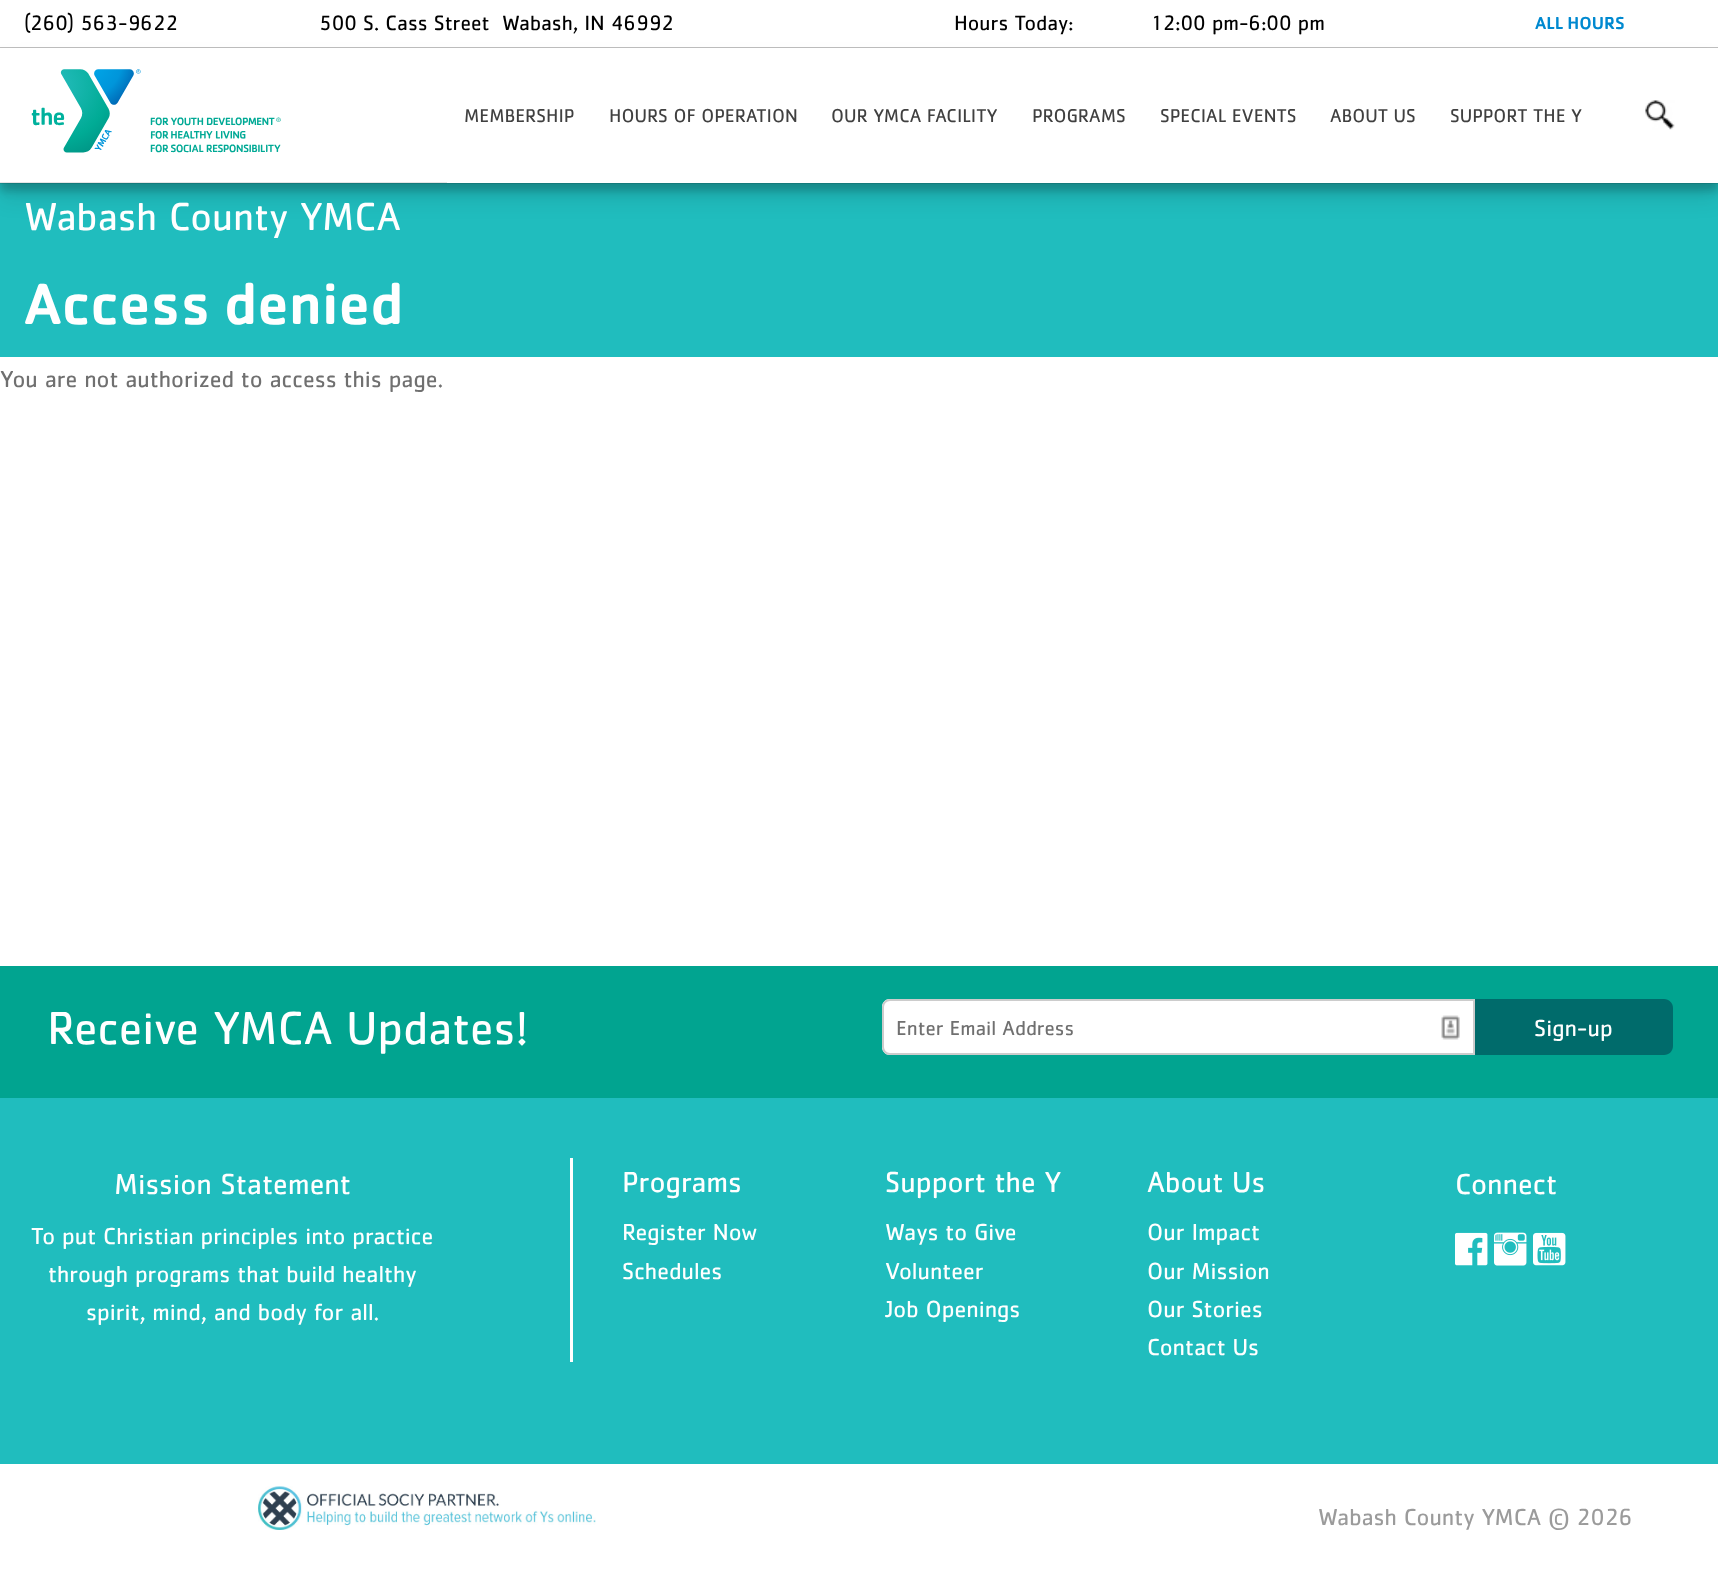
<svg xmlns="http://www.w3.org/2000/svg" width="1718" height="1585">
	<rect width="100%" height="100%" fill="#FFFFFF" />
	<rect x="0" y="47" width="1718" height="1" fill="#BFBFBF" />
	<g font-family="'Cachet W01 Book'" font-size="21.5" fill="#000000">
		<text x="24" y="30">(260) 563-9622</text>
		<text x="319" y="30">500 S. Cass Street</text>
		<text x="502" y="30">Wabash, IN 46992</text>
		<text x="954" y="30">Hours Today:</text>
		<text x="1150" y="30">12:00 pm-6:00 pm</text>
	</g>
	<text x="1535" y="29" font-family="'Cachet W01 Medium'" font-size="18" font-weight="500" fill="#0089D0">ALL HOURS</text>
	<rect x="0" y="183" width="1718" height="174" fill="#20BDBE" />
	<rect x="0" y="63" width="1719" height="135" fill="#000000" fill-opacity="0.1" filter="blur(10.5px)" />
	<rect x="0" y="56" width="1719" height="135" fill="#000000" fill-opacity="0.2" filter="blur(4px)" />
	<rect x="0" y="48" width="447" height="135" fill="#FFFFFF" />
	<rect x="0" y="182" width="1718" height="2" fill="#000000" fill-opacity="0.1" />
	<image x="31" y="69" width="250" height="84" href="assets/img1.png" />
	<rect x="447" y="48" width="1152" height="135" fill="#FFFFFF" />
	<g font-family="'Cachet W01 Book'" font-size="19.25" fill="#404040">
		<text x="464" y="122">MEMBERSHIP</text>
		<text x="609" y="122">HOURS OF OPERATION</text>
		<text x="831" y="122">OUR YMCA FACILITY</text>
		<text x="1032" y="122">PROGRAMS</text>
		<text x="1160" y="122">SPECIAL EVENTS</text>
		<text x="1330" y="122">ABOUT US</text>
		<text x="1450" y="122">SUPPORT THE Y</text>
	</g>
	<rect x="1599" y="48" width="119" height="135" fill="#FFFFFF" />
	<image x="1645" y="100" width="30" height="30" href="assets/img2.png" />
	<text x="24" y="230" font-family="'Cachet W01 Book'" font-size="40.5" fill="#FFFFFF">Wabash County YMCA</text>
	<text x="24" y="324" font-family="'Cachet W01 Medium'" font-size="60" font-weight="500" fill="#FFFFFF">Access denied</text>
	<text x="0" y="387" font-family="'Cachet W01 Book'" font-size="24" fill="#707070">You are not authorized to access this page.</text>
	<rect x="0" y="966" width="1718" height="132" fill="#01A490" />
	<text x="47" y="1044" font-family="'Cachet W01 Book'" font-size="48" fill="#FFFFFF">Receive YMCA Updates!</text>
	<path d="M890 999H1475V1055H890C885.5 1055 882 1051.5 882 1047V1007C882 1002.5 885.5 999 890 999Z" fill="#FFFFFF" />
	<image x="1441" y="1015" width="19" height="25" href="assets/img3.png" />
	<path d="M890 1000H1474V1054H890C886 1054 883 1051 883 1047V1007C883 1003 886 1000 890 1000Z" fill="none" stroke="#CCCCCC" stroke-width="2" />
	<text x="896" y="1035" font-family="'Cachet W01 Book'" font-size="21" fill="#707070">Enter Email Address</text>
	<path d="M1475 999H1664C1669 999 1673 1003 1673 1008V1046C1673 1051 1669 1055 1664 1055H1475Z" fill="#006B6B" />
	<text x="1534" y="1036" font-family="'Cachet W01 Book'" font-size="24" fill="#FFFFFF">Sign-up</text>
	<rect x="0" y="1098" width="1718" height="366" fill="#20BDBE" />
	<rect x="570" y="1158" width="3" height="204" fill="#FFFFFF" />
	<text x="114" y="1194" font-family="'Cachet W01 Book'" font-size="30" fill="#FFFFFF">Mission Statement</text>
	<g font-family="'Cachet W01 Book'" font-size="24" fill="#FFFFFF">
		<text x="31" y="1244">To put Christian principles into practice</text>
		<text x="48" y="1282">through programs that build healthy</text>
		<text x="86" y="1320">spirit, mind, and body for all.</text>
	</g>
	<text x="622" y="1192" font-family="'Cachet W01 Book'" font-size="30" fill="#FFFFFF">Programs</text>
	<g font-family="'Cachet W01 Book'" font-size="24" fill="#FFFFFF">
		<text x="622" y="1240">Register Now</text>
		<text x="622" y="1279">Schedules</text>
	</g>
	<text x="885" y="1192" font-family="'Cachet W01 Book'" font-size="30" fill="#FFFFFF">Support the Y</text>
	<g font-family="'Cachet W01 Book'" font-size="24" fill="#FFFFFF">
		<text x="885" y="1240">Ways to Give</text>
		<text x="885" y="1279">Volunteer</text>
		<text x="885" y="1317">Job Openings</text>
	</g>
	<text x="1147" y="1192" font-family="'Cachet W01 Book'" font-size="30" fill="#FFFFFF">About Us</text>
	<g font-family="'Cachet W01 Book'" font-size="24" fill="#FFFFFF">
		<text x="1147" y="1240">Our Impact</text>
		<text x="1147" y="1279">Our Mission</text>
		<text x="1147" y="1317">Our Stories</text>
		<text x="1147" y="1355">Contact Us</text>
	</g>
	<text x="1455" y="1194" font-family="'Cachet W01 Book'" font-size="30" fill="#FFFFFF">Connect</text>
	<image x="1455" y="1232" width="33" height="34" href="assets/img4.png" />
	<image x="1494" y="1232" width="33" height="34" href="assets/img5.png" />
	<image x="1533" y="1232" width="33" height="34" href="assets/img6.png" />
	<image x="258" y="1486" width="338" height="44" href="assets/img7.png" />
	<text x="1318" y="1525" font-family="'Cachet W01 Book'" font-size="24" fill="#9B9B9B">Wabash County YMCA © 2026</text>
</svg>
